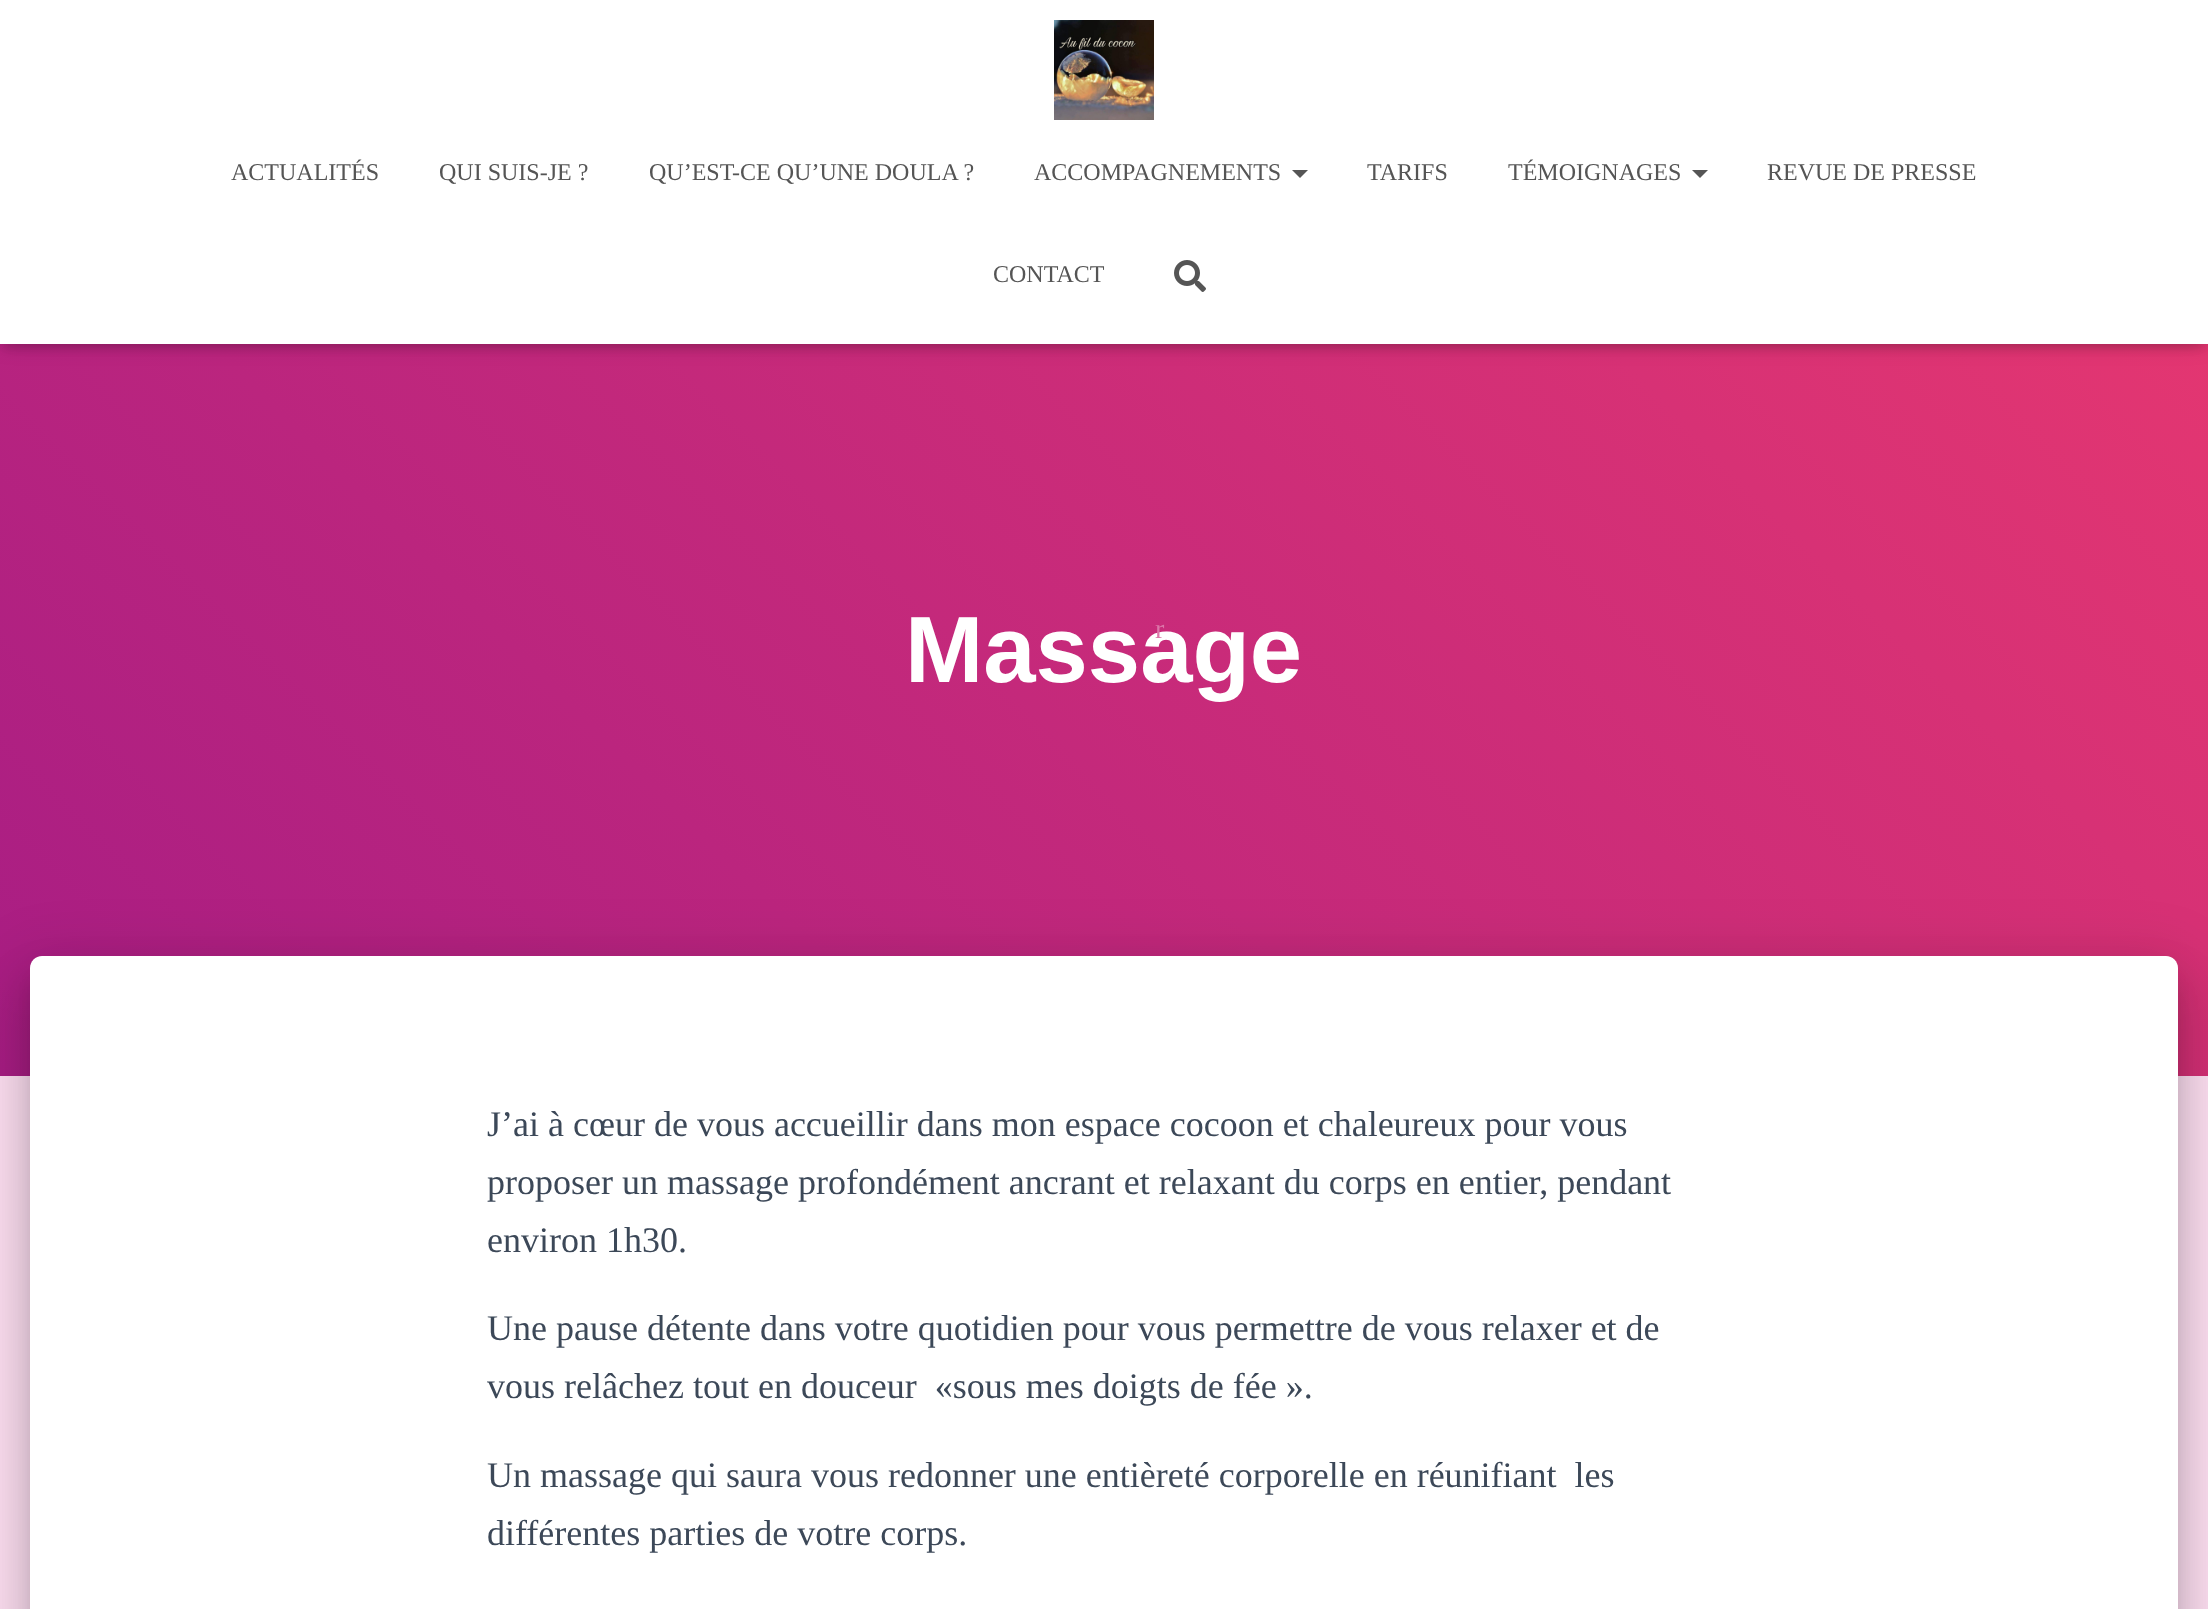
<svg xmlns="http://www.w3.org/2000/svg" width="2208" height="1609">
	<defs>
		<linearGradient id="g1" gradientUnits="userSpaceOnUse" x1="283" y1="1359" x2="1925" y2="-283"><stop offset="0" stop-color="#A81D84" /><stop offset="1" stop-color="#EA396F" /></linearGradient>
	</defs>
	<rect width="100%" height="100%" fill="#FFE0F3" />
	<rect x="0" y="344" width="2208" height="732" fill="url(#g1)" />
	<rect x="4" y="12" width="2200" height="336" fill="#000000" fill-opacity="0.1" filter="blur(5px)" />
	<rect x="0" y="2" width="2208" height="344" fill="#000000" fill-opacity="0.12" filter="blur(10px)" />
	<rect x="12" y="14" width="2184" height="320" fill="#000000" fill-opacity="0.42" filter="blur(10px)" />
	<rect x="0" y="0" width="2208" height="344" fill="#FFFFFF" />
	<image x="1054" y="20" width="100" height="100" href="assets/img1.png" />
	<g font-family="Liberation Serif" font-size="24" fill="#555555">
		<text x="231" y="180">ACTUALITÉS</text>
		<text x="439" y="180">QUI SUIS-JE ?</text>
		<text x="649" y="180">QU’EST-CE QU’UNE DOULA ?</text>
		<text x="1034" y="180">ACCOMPAGNEMENTS</text>
	</g>
	<path d="M1292 170H1308L1300 178Z" fill="#555555" />
	<g font-family="Liberation Serif" font-size="24" fill="#555555">
		<text x="1367" y="180">TARIFS</text>
		<text x="1508" y="180">TÉMOIGNAGES</text>
	</g>
	<path d="M1692 170H1708L1700 178Z" fill="#555555" />
	<g font-family="Liberation Serif" font-size="24" fill="#555555">
		<text x="1767" y="180">REVUE DE PRESSE</text>
		<text x="993" y="282">CONTACT</text>
	</g>
	<image x="1174" y="260" width="32" height="32" href="assets/img2.png" />
	<text x="905" y="682" font-family="Liberation Sans" font-size="94" font-weight="700" fill="#FFFFFF">Massage</text>
	<text x="1155" y="638" font-family="Liberation Serif" font-size="28" fill="#DB76A9">r</text>
	<rect x="40" y="982" width="2128" height="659" rx="2" fill="#000000" fill-opacity="0.2" filter="blur(10px)" />
	<rect x="20" y="958" width="2168" height="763" rx="22" fill="#000000" fill-opacity="0.12" filter="blur(30px)" />
	<rect x="26" y="984" width="2156" height="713" rx="16" fill="#000000" fill-opacity="0.14" filter="blur(24px)" />
	<path d="M42 956H2166C2172.5 956 2178 961.5 2178 968V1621H30V968C30 961.5 35.5 956 42 956Z" fill="#FFFFFF" />
	<g font-family="Liberation Serif" font-size="36" fill="#3C4858">
		<text x="487" y="1136">J’ai à cœur de vous accueillir dans mon espace cocoon et chaleureux pour vous</text>
		<text x="487" y="1194">proposer un massage profondément ancrant et relaxant du corps en entier, pendant</text>
		<text x="487" y="1252">environ 1h30.</text>
		<text x="487" y="1340">Une pause détente dans votre quotidien pour vous permettre de vous relaxer et de</text>
		<text x="487" y="1398" xml:space="preserve">vous relâchez tout en douceur  «sous mes doigts de fée ».</text>
		<text x="487" y="1487" xml:space="preserve">Un massage qui saura vous redonner une entièreté corporelle en réunifiant  les</text>
		<text x="487" y="1545">différentes parties de votre corps.</text>
	</g>
</svg>
